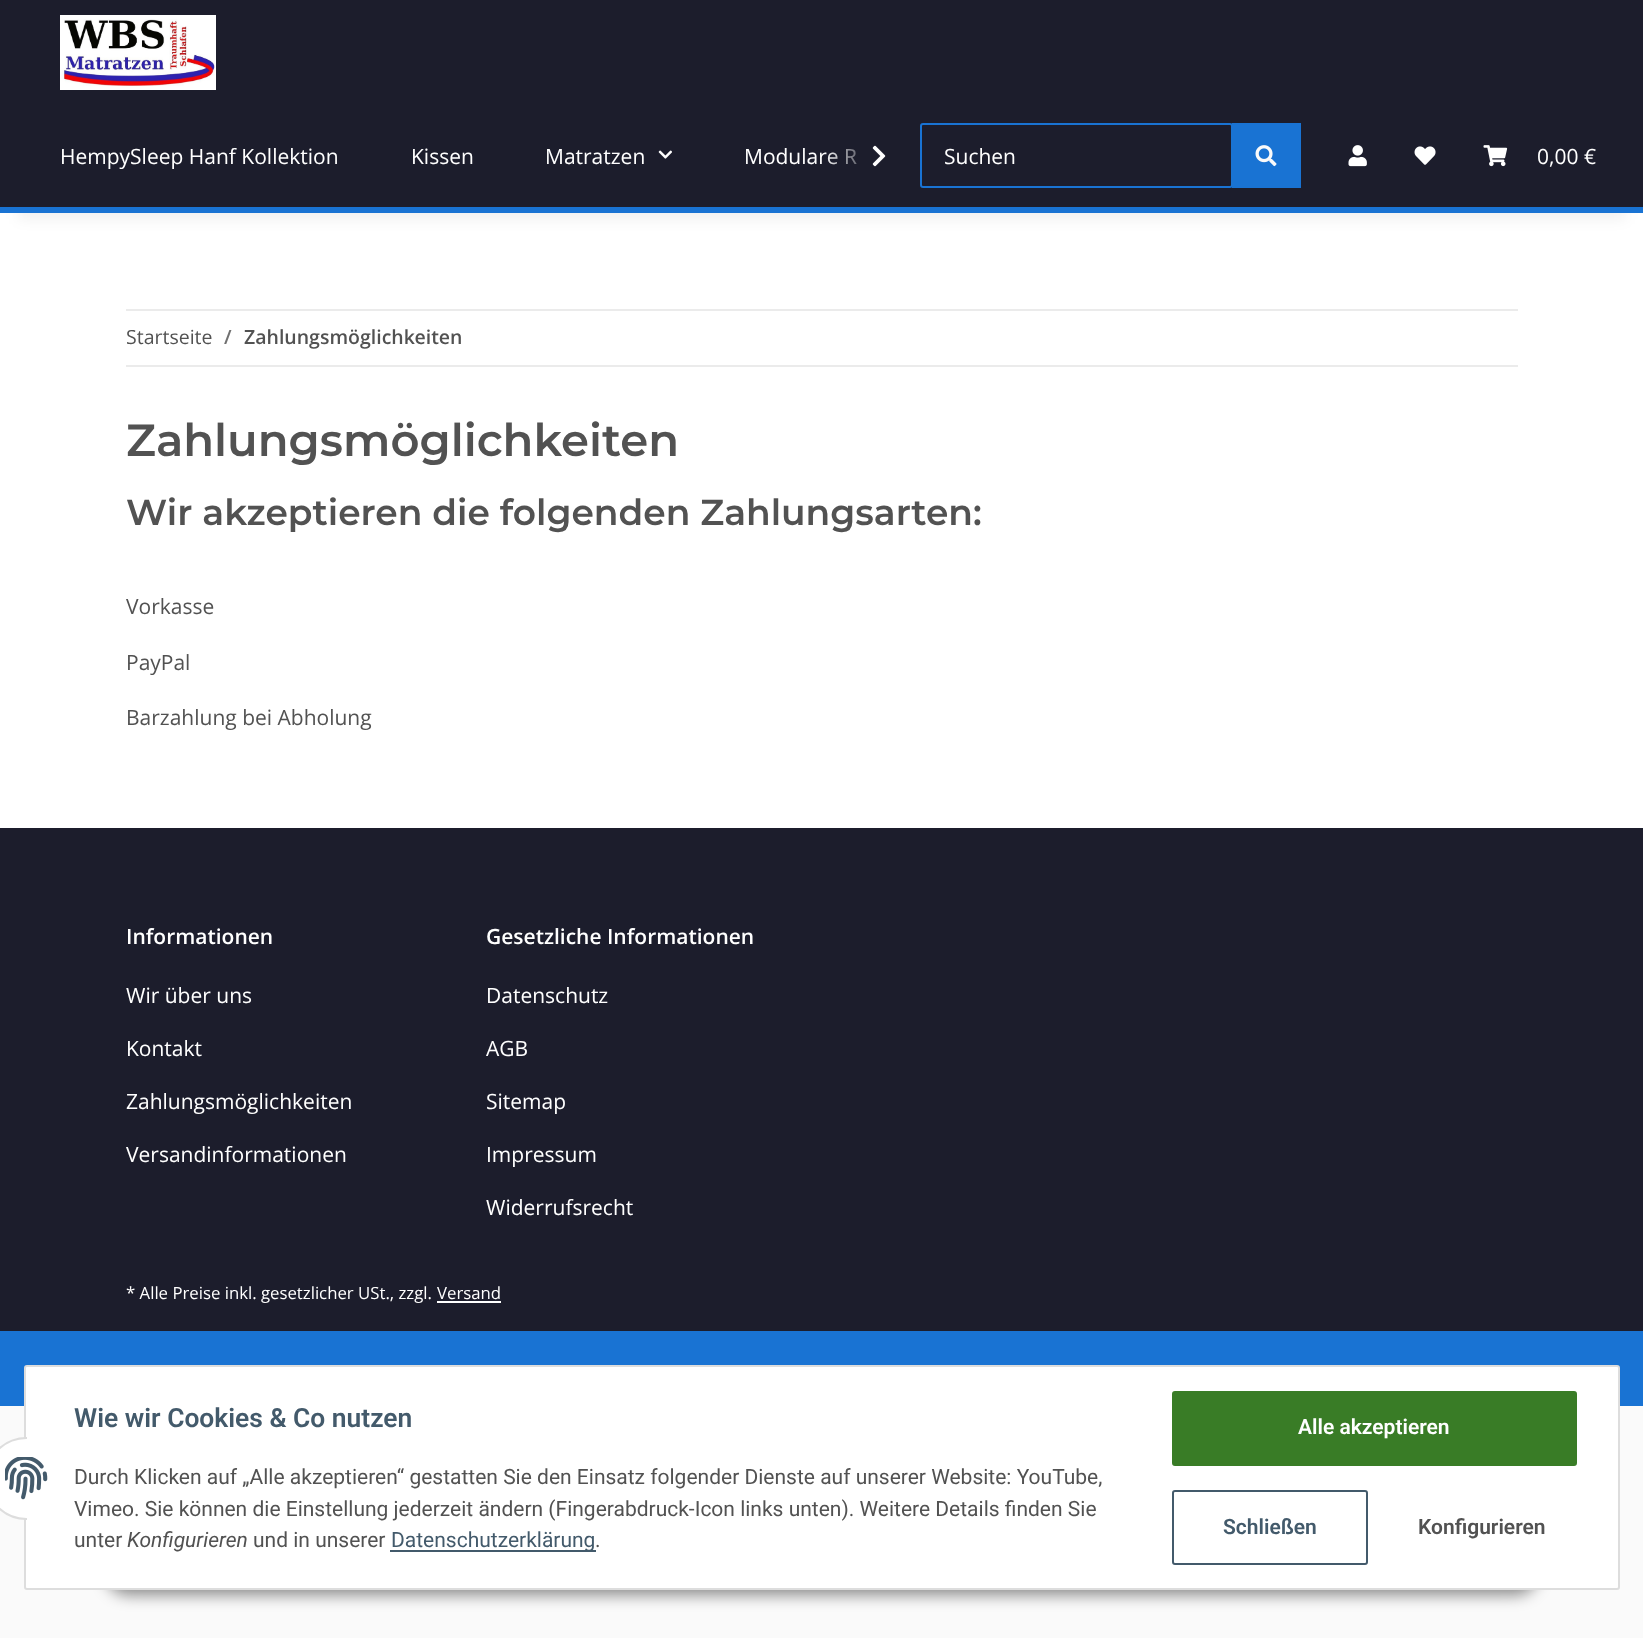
<svg xmlns="http://www.w3.org/2000/svg" width="1643" height="1638">
	<defs>
		<linearGradient id="g1" gradientUnits="userSpaceOnUse" x1="824" y1="156" x2="896" y2="156"><stop offset="0" stop-color="#1C1D2C" stop-opacity="0.01" /><stop offset="0.7" stop-color="#1C1D2C" /></linearGradient>
	</defs>
	<rect width="100%" height="100%" fill="#FAFAFA" />
	<rect x="0" y="213" width="1643" height="615" fill="#FFFFFF" />
	<rect x="18" y="42" width="1608" height="177" fill="#000000" fill-opacity="0.06" filter="blur(7px)" />
	<rect x="0" y="0" width="1643" height="207" fill="#1C1D2C" />
	<rect x="0" y="207" width="1643" height="6" fill="#1973D3" />
	<image x="60" y="15" width="156" height="75" href="assets/img1.png" />
	<text x="744" y="164" font-family="Open Sans" font-size="21" fill="#FFFFFF">Modulare R</text>
	<rect x="825" y="149" width="32" height="16" fill="url(#g1)" />
	<image x="872" y="145" width="14" height="22" href="assets/img2.png" />
	<g font-family="Open Sans" font-size="21" fill="#FFFFFF">
		<text x="60" y="164">HempySleep Hanf Kollektion</text>
		<text x="411" y="164">Kissen</text>
		<text x="545" y="164">Matratzen</text>
	</g>
	<image x="658" y="150" width="14" height="9" href="assets/img3.png" />
	<rect x="921" y="124" width="311" height="63" rx="2" fill="none" stroke="#1973D3" stroke-width="2" />
	<text x="944" y="164" font-family="Open Sans" font-size="21" fill="#FFFFFF">Suchen</text>
	<rect x="1232" y="123" width="69" height="65" fill="#1973D3" />
	<image x="1255" y="145" width="22" height="22" href="assets/img4.png" />
	<image x="1348" y="145" width="19" height="22" href="assets/img5.png" />
	<image x="1414" y="146" width="22" height="19" href="assets/img6.png" />
	<image x="1483" y="145" width="25" height="22" href="assets/img7.png" />
	<text x="1537" y="164" font-family="Open Sans" font-size="21" fill="#FFFFFF">0,00 €</text>
	<rect x="126" y="309" width="1392" height="2" fill="#EBEBEB" />
	<rect x="126" y="365" width="1392" height="2" fill="#EBEBEB" />
	<text x="126" y="344" font-family="Open Sans" font-size="19.5" fill="#525252">Startseite</text>
	<text x="224" y="344" font-family="Open Sans" font-size="19.5" font-weight="600" fill="#707070">/</text>
	<text x="244" y="344" font-family="Open Sans" font-size="19.5" font-weight="600" fill="#525252">Zahlungsmöglichkeiten</text>
	<text x="126" y="456" font-family="Montserrat" font-size="45" font-weight="600" fill="#525252">Zahlungsmöglichkeiten</text>
	<text x="126" y="525" font-family="Montserrat" font-size="36" font-weight="600" fill="#525252">Wir akzeptieren die folgenden Zahlungsarten:</text>
	<g font-family="Open Sans" font-size="21" fill="#525252">
		<text x="126" y="614">Vorkasse</text>
		<text x="126" y="670">PayPal</text>
		<text x="126" y="725">Barzahlung bei Abholung</text>
	</g>
	<rect x="0" y="828" width="1643" height="503" fill="#1C1D2C" />
	<text x="126" y="944" font-family="Open Sans" font-size="21" font-weight="600" fill="#FFFFFF">Informationen</text>
	<g font-family="Open Sans" font-size="21" fill="#FFFFFF">
		<text x="126" y="1003">Wir über uns</text>
		<text x="126" y="1056">Kontakt</text>
		<text x="126" y="1109">Zahlungsmöglichkeiten</text>
		<text x="126" y="1162">Versandinformationen</text>
	</g>
	<text x="486" y="944" font-family="Open Sans" font-size="21" font-weight="600" fill="#FFFFFF">Gesetzliche Informationen</text>
	<g font-family="Open Sans" font-size="21" fill="#FFFFFF">
		<text x="486" y="1003">Datenschutz</text>
		<text x="486" y="1056">AGB</text>
		<text x="486" y="1109">Sitemap</text>
		<text x="486" y="1162">Impressum</text>
		<text x="486" y="1215">Widerrufsrecht</text>
	</g>
	<g font-family="Open Sans" font-size="16.75" fill="#FFFFFF">
		<text x="126" y="1299">* Alle Preise inkl. gesetzlicher USt., zzgl.</text>
		<text x="437" y="1299">Versand</text>
	</g>
	<rect x="437" y="1301" width="64" height="2" fill="#FFFFFF" />
	<rect x="0" y="1331" width="1643" height="75" fill="#1973D3" />
	<rect x="105" y="1547" width="1434" height="48" rx="24" fill="#000000" fill-opacity="0.45" filter="blur(7.5px)" />
	<rect x="25" y="1366" width="1594" height="223" rx="2" fill="#FFFFFF" stroke="#DDDDDD" stroke-width="2" />
	<circle cx="26.5" cy="1478.5" r="40.5" fill="#FFFFFF" stroke="#DDDDDD" stroke-width="2" />
	<rect x="27" y="1437" width="41" height="83" fill="#FFFFFF" />
	<image x="5" y="1457" width="43" height="43" href="assets/img8.png" />
	<text x="74" y="1427" font-family="Roboto" font-size="26.4" font-weight="600" fill="#435A6B">Wie wir Cookies &amp; Co nutzen</text>
	<g font-family="Roboto" font-size="21" fill="#525252">
		<text x="74" y="1484">Durch Klicken auf „Alle akzeptieren“ gestatten Sie den Einsatz folgender Dienste auf unserer Website: YouTube,</text>
		<text x="74" y="1516">Vimeo. Sie können die Einstellung jederzeit ändern (Fingerabdruck-Icon links unten). Weitere Details finden Sie</text>
		<text x="74" y="1547">unter</text>
	</g>
	<text x="127" y="1547" font-family="Roboto" font-size="21" font-style="italic" fill="#525252">Konfigurieren</text>
	<text x="253" y="1547" font-family="Roboto" font-size="21" fill="#525252">und in unserer</text>
	<rect x="390" y="1550" width="206" height="2" fill="#435A6B" />
	<text x="391" y="1547" font-family="Roboto" font-size="21" fill="#435A6B">Datenschutzerklärung</text>
	<text x="595" y="1547" font-family="Roboto" font-size="21" fill="#525252">.</text>
	<rect x="1173" y="1392" width="403" height="73" rx="2" fill="#397C26" stroke="#397C26" stroke-width="2" />
	<text x="1298" y="1434" font-family="Roboto" font-size="21" font-weight="600" fill="#FFFFFF">Alle akzeptieren</text>
	<rect x="1173" y="1491" width="194" height="73" rx="2" fill="none" stroke="#435A6B" stroke-width="2" />
	<text x="1223" y="1534" font-family="Roboto" font-size="21" font-weight="600" fill="#435A6B">Schließen</text>
	<text x="1418" y="1534" font-family="Roboto" font-size="21" font-weight="600" fill="#525252">Konfigurieren</text>
</svg>
